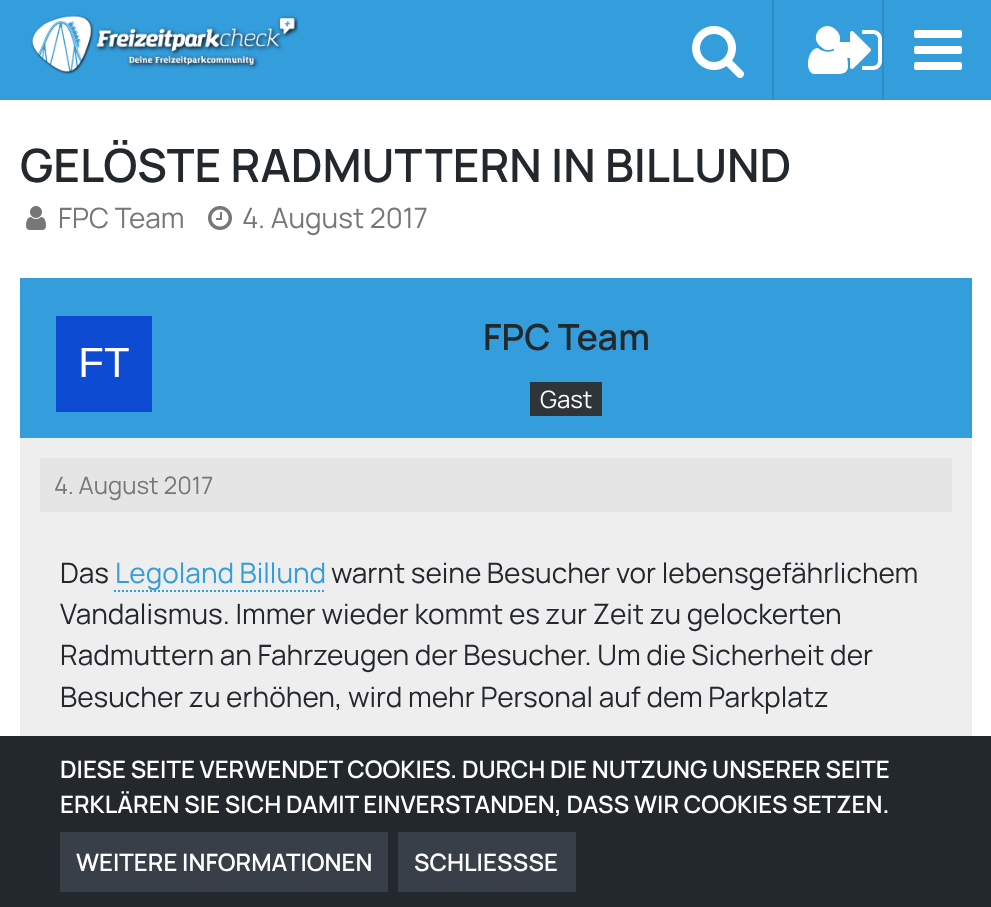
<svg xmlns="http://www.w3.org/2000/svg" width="991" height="907">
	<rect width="100%" height="100%" fill="#FFFFFF" />
	<rect x="0" y="0" width="991" height="100" fill="#349DDC" />
	<image x="692" y="26" width="52" height="52" href="assets/img1.png" />
	<rect x="882" y="0" width="2" height="100" fill="#2F8DC6" />
	<image x="914" y="30" width="48" height="40" href="assets/img2.png" />
	<image x="31" y="15" width="267" height="59" href="assets/img3.png" />
	<rect x="772" y="0" width="2" height="100" fill="#2F8DC6" />
	<path d="M848 66C848 73 843 74 837 74H813C804 70 808 48 818 48C824 53 832 53 838 48C847 48 848 59 848 66ZM836 30C848 41 831 58 820 46C808 35 825 18 836 30Z" fill="#FFFFFF" />
	<image x="834" y="30" width="48" height="40" href="assets/img4.png" />
	<text x="20" y="182" font-family="Manrope" font-size="46" font-weight="600" fill="#23282D">GELÖSTE RADMUTTERN IN BILLUND</text>
	<image x="26" y="206" width="20" height="24" href="assets/img5.png" />
	<text x="58" y="228" font-family="Manrope" font-size="28" fill="#777777">FPC Team</text>
	<image x="208" y="206" width="24" height="24" href="assets/img6.png" />
	<text x="242" y="228" font-family="Manrope" font-size="28" fill="#777777">4. August 2017</text>
	<rect x="20" y="278" width="952" height="160" fill="#349DDC" />
	<image x="56" y="316" width="96" height="96" href="assets/img7.png" />
	<text x="483" y="350" font-family="Manrope" font-size="36" font-weight="600" fill="#23282D">FPC Team</text>
	<rect x="530" y="382" width="72" height="34" fill="#2F3439" />
	<text x="540" y="408" font-family="Manrope" font-size="24" fill="#FFFFFF">Gast</text>
	<rect x="20" y="438" width="952" height="298" fill="#EEEEEE" />
	<rect x="40" y="458" width="912" height="54" fill="#E5E5E5" />
	<text x="54" y="494" font-family="Manrope" font-size="24" fill="#777777">4. August 2017</text>
	<text x="60" y="583" font-family="Manrope" font-size="28" fill="#23282D">Das</text>
	<path d="M114 591H326" fill="none" stroke="#349DDC" stroke-width="2" stroke-dasharray="2 2" />
	<text x="115" y="583" font-family="Manrope" font-size="28" fill="#349DDC">Legoland Billund</text>
	<g font-family="Manrope" font-size="28" fill="#23282D">
		<text x="331" y="583">warnt seine Besucher vor lebensgefährlichem</text>
		<text x="60" y="624">Vandalismus. Immer wieder kommt es zur Zeit zu gelockerten</text>
		<text x="60" y="665">Radmuttern an Fahrzeugen der Besucher. Um die Sicherheit der</text>
		<text x="60" y="707">Besucher zu erhöhen, wird mehr Personal auf dem Parkplatz</text>
	</g>
	<rect x="0" y="736" width="991" height="171" fill="#23282D" />
	<g font-family="Manrope" font-size="24" font-weight="600" fill="#FFFFFF">
		<text x="60" y="778">DIESE SEITE VERWENDET COOKIES. DURCH DIE NUTZUNG UNSERER SEITE</text>
		<text x="60" y="813">ERKLÄREN SIE SICH DAMIT EINVERSTANDEN, DASS WIR COOKIES SETZEN.</text>
	</g>
	<rect x="60" y="832" width="328" height="60" fill="#383F48" />
	<text x="76" y="871" font-family="Manrope" font-size="24" font-weight="600" fill="#FFFFFF">WEITERE INFORMATIONEN</text>
	<rect x="398" y="832" width="178" height="60" fill="#383F48" />
	<g font-family="Manrope" font-size="24" font-weight="600" fill="#FFFFFF">
		<text x="414" y="871">SCHLIE</text>
		<text x="497" y="871">SSSE</text>
	</g>
</svg>
